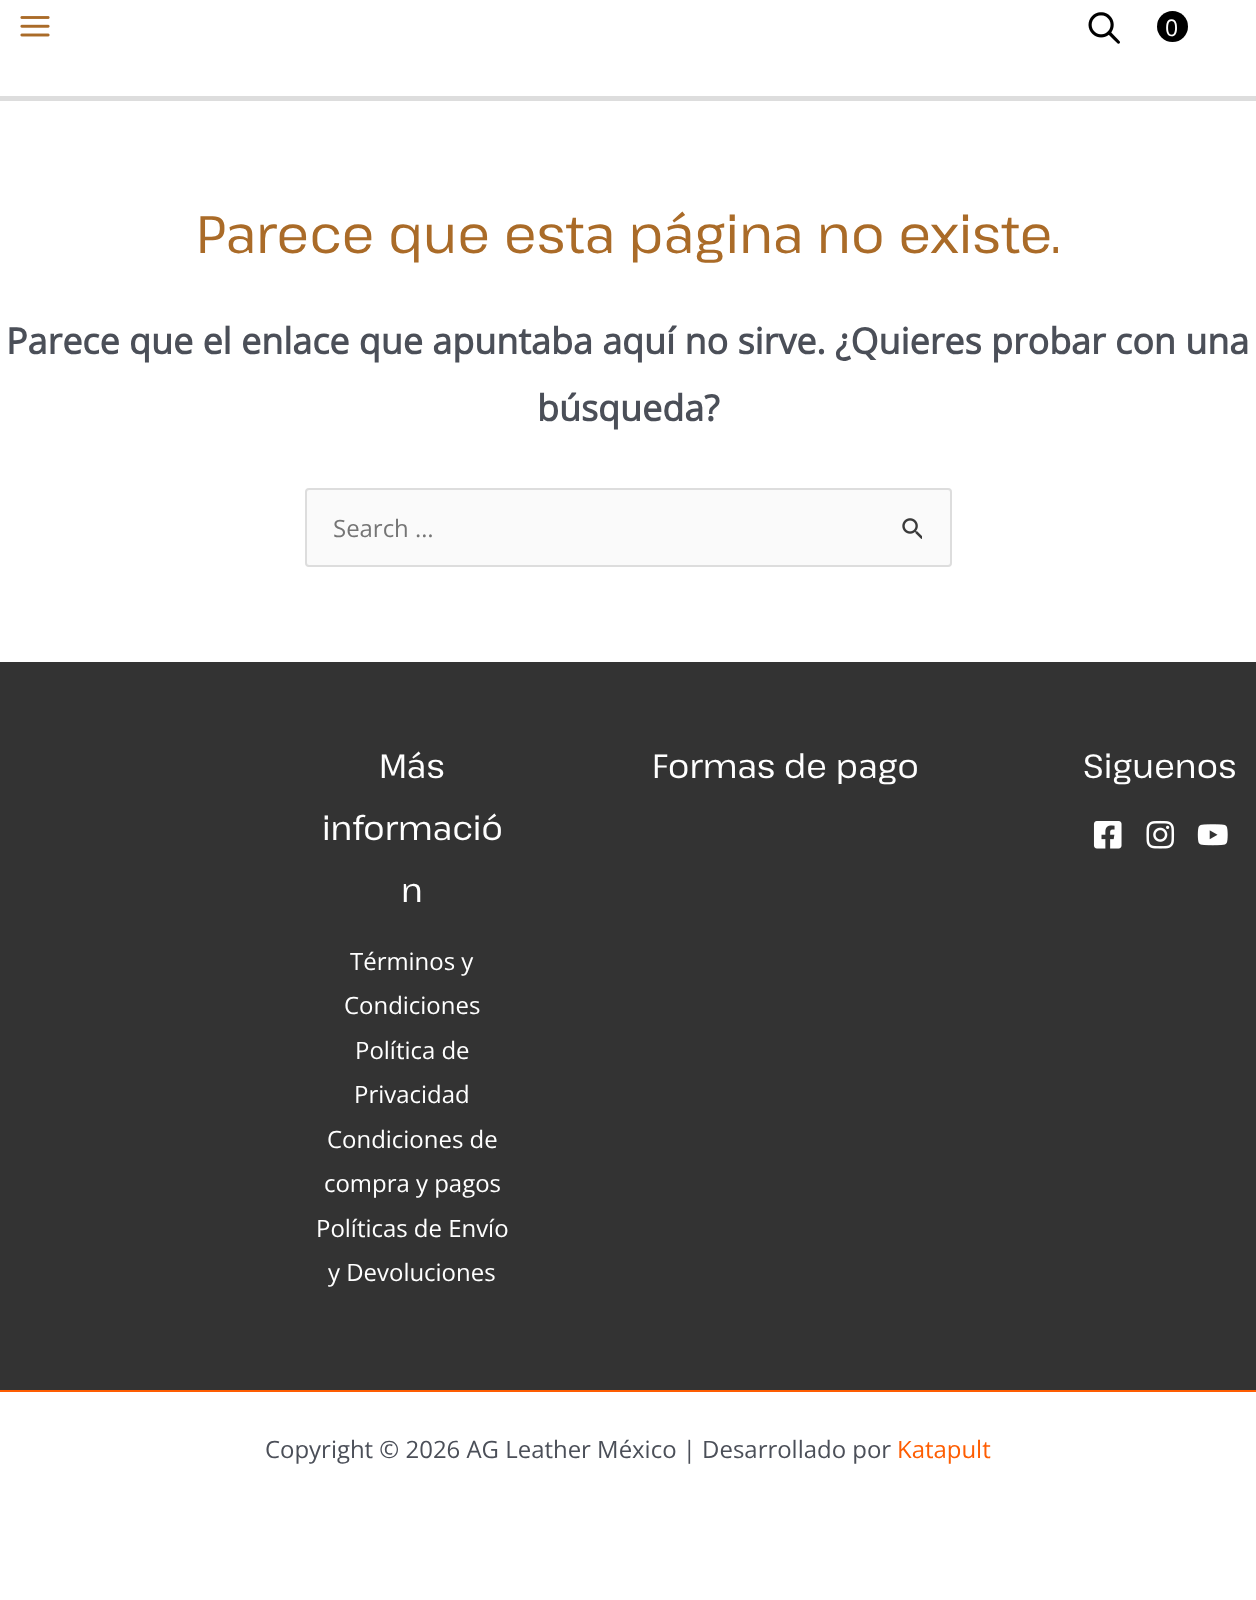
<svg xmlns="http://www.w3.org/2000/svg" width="1256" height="1600">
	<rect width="100%" height="100%" fill="#FFFFFF" />
	<rect x="0" y="96" width="1256" height="5" fill="#DDDDDD" />
	<image x="20" y="16" width="30" height="21" href="assets/img1.png" />
	<image x="1088" y="12" width="32" height="32" href="assets/img2.png" />
	<circle cx="1172.5" cy="26.5" r="15.5" fill="#000000" />
	<text x="1165" y="36" font-family="Open Sans" font-size="23" fill="#FFFFFF">0</text>
	<text x="196" y="253" font-family="Pathway Extreme" font-size="52.5" font-weight="100" fill="#AA6B28">Parece que esta página no existe.</text>
	<g font-family="Open Sans" font-size="35.9" font-weight="700" fill="#4B4F58">
		<text x="6" y="354">Parece que el enlace que apuntaba aquí no sirve. ¿Quieres probar con una</text>
		<text x="537" y="421">búsqueda?</text>
	</g>
	<rect x="306" y="489" width="645" height="77" rx="3" fill="#FAFAFA" stroke="#DDDDDD" stroke-width="2" />
	<text x="333" y="537" font-family="Open Sans" font-size="23.95" fill="#757575">Search …</text>
	<image x="902" y="518" width="20" height="21" href="assets/img3.png" />
	<rect x="0" y="662" width="1256" height="728" fill="#333333" />
	<g font-family="Pathway Extreme" font-size="33.5" font-weight="100" fill="#FFFFFF">
		<text x="379" y="778">Más</text>
		<text x="322" y="840">informació</text>
		<text x="401" y="902">n</text>
	</g>
	<g font-family="Open Sans" font-size="23.95" fill="#FFFFFF">
		<text x="350" y="970">Términos y</text>
		<text x="344" y="1014">Condiciones</text>
		<text x="355" y="1059">Política de</text>
		<text x="354" y="1103">Privacidad</text>
		<text x="327" y="1148">Condiciones de</text>
		<text x="324" y="1192">compra y pagos</text>
		<text x="316" y="1237">Políticas de Envío</text>
		<text x="328" y="1281">y Devoluciones</text>
	</g>
	<g font-family="Pathway Extreme" font-size="33.5" font-weight="100" fill="#FFFFFF">
		<text x="652" y="778">Formas de pago</text>
		<text x="1083" y="778">Siguenos</text>
	</g>
	<image x="1093" y="821" width="29" height="28" href="assets/img4.png" />
	<image x="1146" y="820" width="29" height="29" href="assets/img5.png" />
	<image x="1197" y="824" width="31" height="22" href="assets/img6.png" />
	<rect x="0" y="1390" width="1256" height="2" fill="#FE5D02" />
	<text x="265" y="1458" font-family="Open Sans" font-size="23.95" fill="#4B4F58">Copyright © 2026 AG Leather México | Desarrollado por</text>
	<text x="897" y="1458" font-family="Open Sans" font-size="23.95" fill="#FE5D02">Katapult</text>
</svg>
